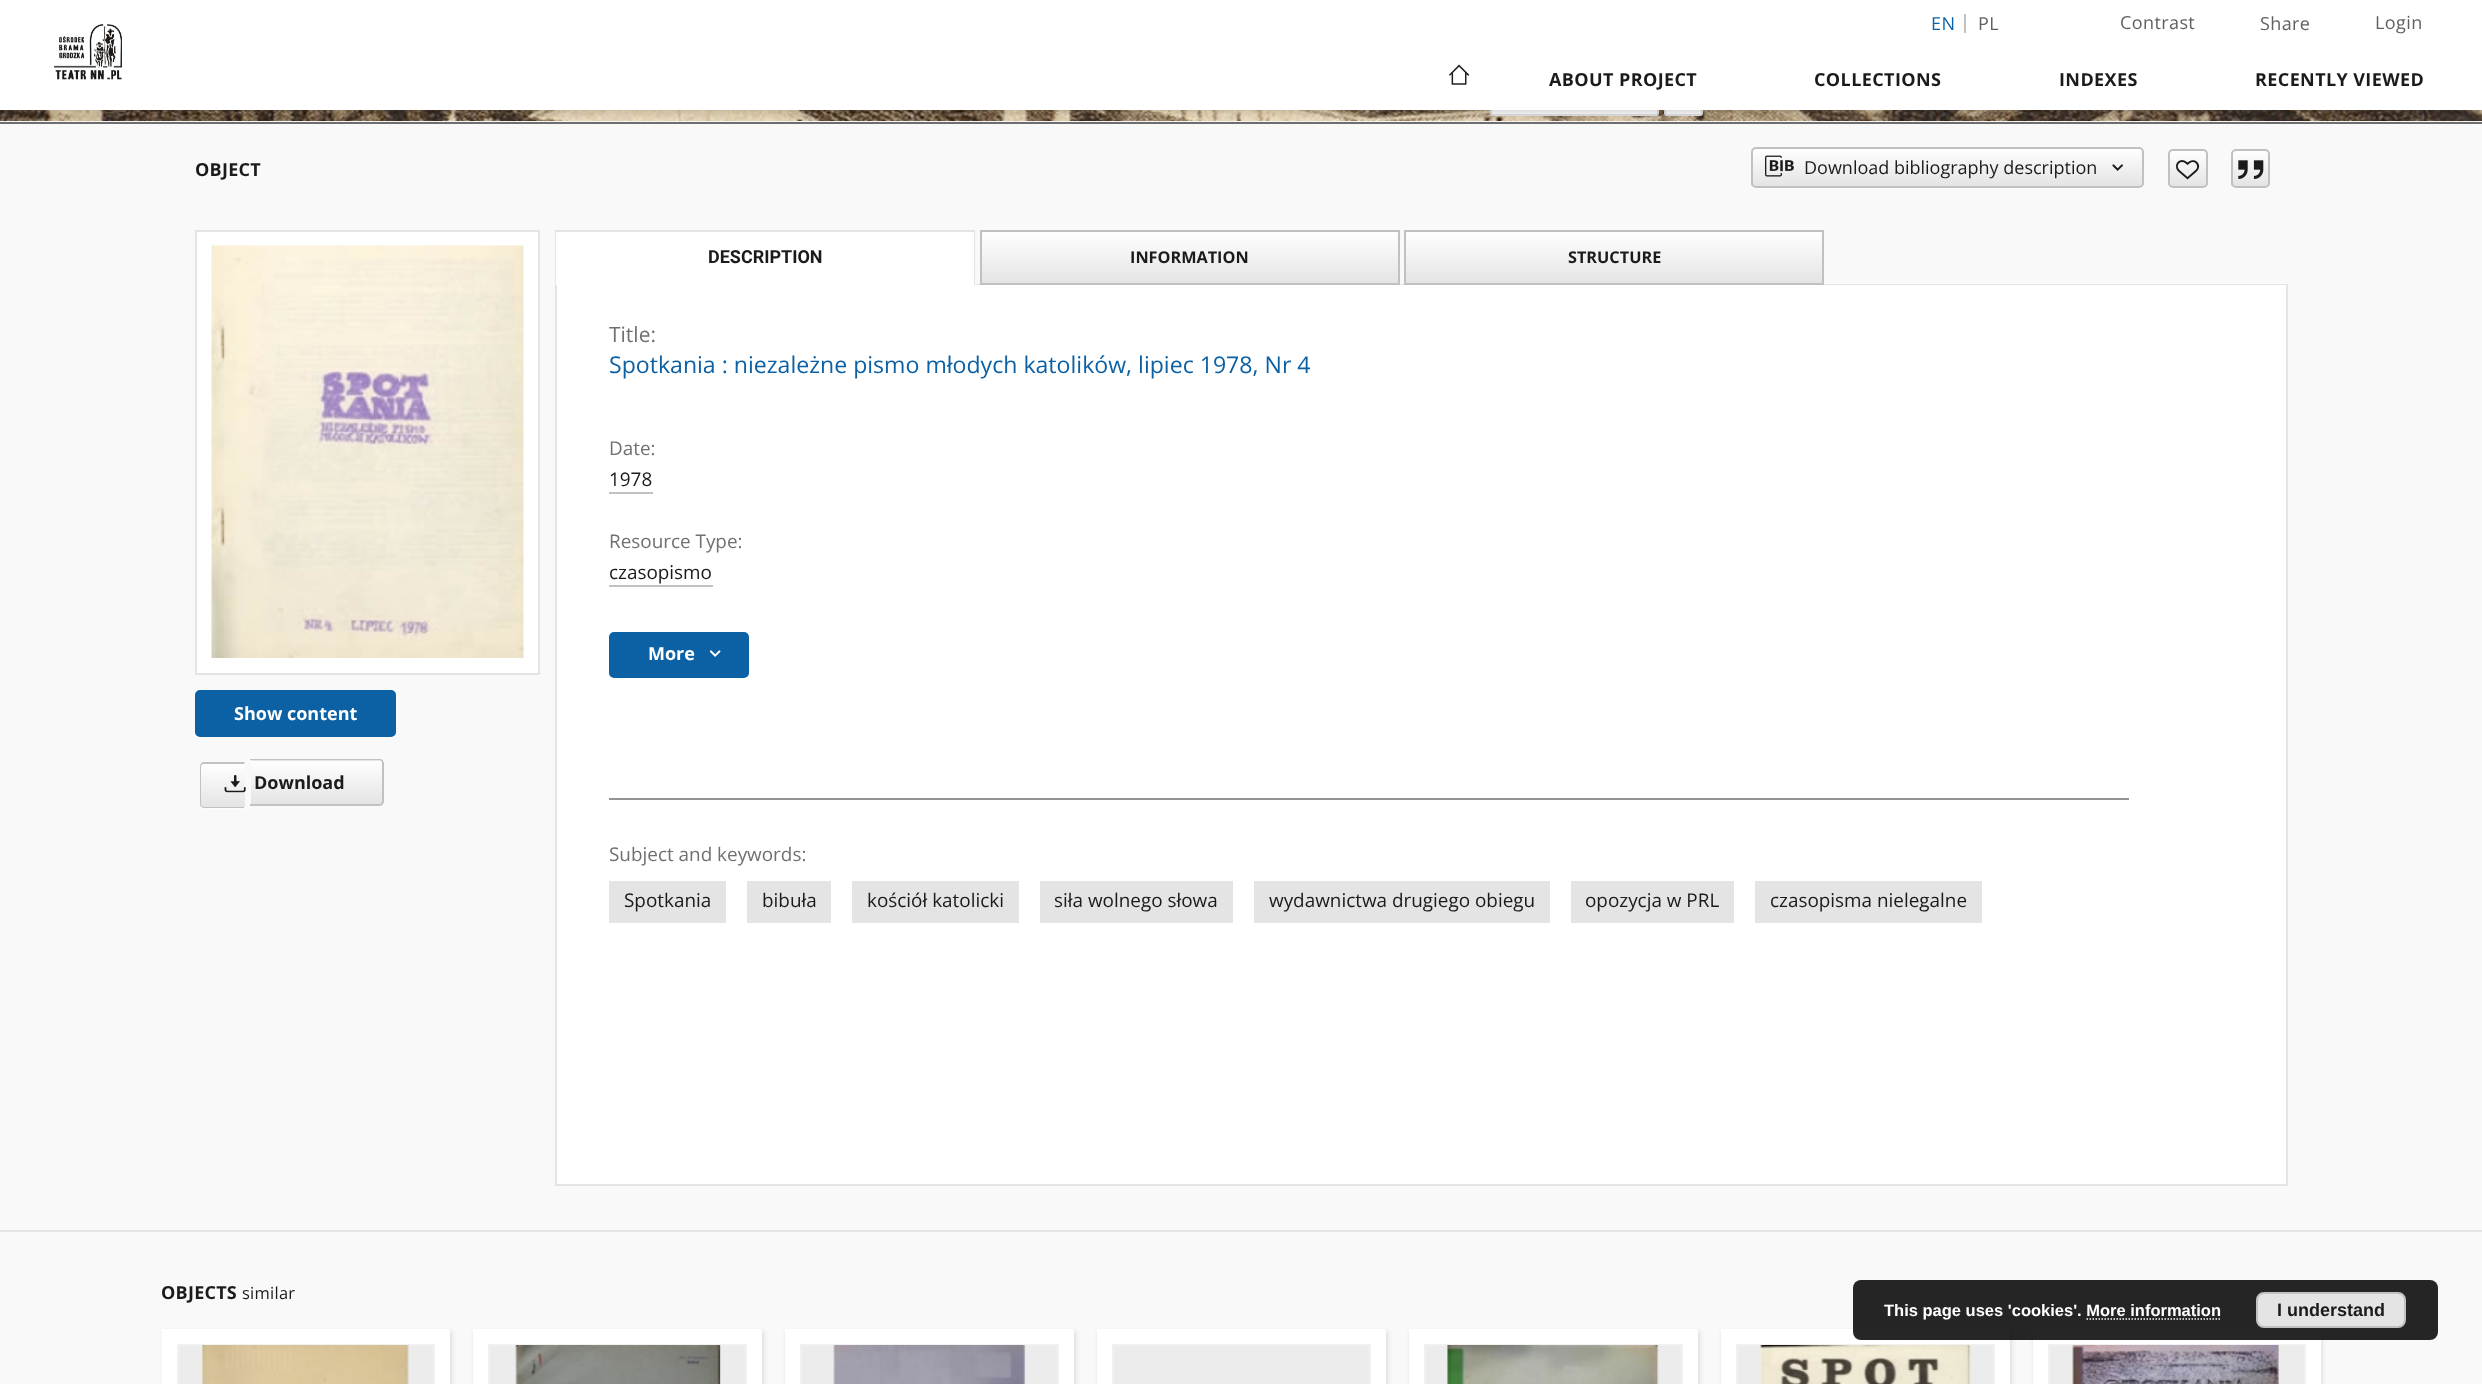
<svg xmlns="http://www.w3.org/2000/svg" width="2482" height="1384">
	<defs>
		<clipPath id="clip1"><rect x="1751" y="147" width="393" height="41" rx="5" /></clipPath>
		<linearGradient id="g1" gradientUnits="userSpaceOnUse" x1="1947" y1="148" x2="1947" y2="186"><stop offset="0" stop-color="#FFFFFF" /><stop offset="1" stop-color="#E4E4E4" /></linearGradient>
		<clipPath id="clip2"><rect x="2168" y="149" width="40" height="39" rx="5" /></clipPath>
		<linearGradient id="g2" gradientUnits="userSpaceOnUse" x1="2188" y1="150" x2="2188" y2="186"><stop offset="0" stop-color="#FFFFFF" /><stop offset="1" stop-color="#E4E4E4" /></linearGradient>
		<clipPath id="clip3"><rect x="2231" y="149" width="39" height="39" rx="5" /></clipPath>
		<linearGradient id="g3" gradientUnits="userSpaceOnUse" x1="2250" y1="150" x2="2250" y2="186"><stop offset="0" stop-color="#FFFFFF" /><stop offset="1" stop-color="#E4E4E4" /></linearGradient>
		<clipPath id="clip4"><path d="M205 762H245V809H205C202 809 200 807 200 804V767C200 764 202 762 205 762Z" /></clipPath>
		<linearGradient id="g4" gradientUnits="userSpaceOnUse" x1="223" y1="720" x2="223" y2="764"><stop offset="0" stop-color="#FFFFFF" /><stop offset="1" stop-color="#E4E4E4" /></linearGradient>
		<linearGradient id="g5" gradientUnits="userSpaceOnUse" x1="223" y1="764" x2="223" y2="807"><stop offset="0" stop-color="#FFFFFF" /><stop offset="1" stop-color="#E4E4E4" /></linearGradient>
		<linearGradient id="g6" gradientUnits="userSpaceOnUse" x1="223" y1="807" x2="223" y2="851"><stop offset="0" stop-color="#FFFFFF" /><stop offset="1" stop-color="#E4E4E4" /></linearGradient>
		<clipPath id="clip5"><path d="M251 759H379C382 759 384 761 384 764V801C384 804 382 806 379 806H251Z" /></clipPath>
		<linearGradient id="g7" gradientUnits="userSpaceOnUse" x1="317" y1="717" x2="317" y2="761"><stop offset="0" stop-color="#FFFFFF" /><stop offset="1" stop-color="#E4E4E4" /></linearGradient>
		<linearGradient id="g8" gradientUnits="userSpaceOnUse" x1="317" y1="761" x2="317" y2="804"><stop offset="0" stop-color="#FFFFFF" /><stop offset="1" stop-color="#E4E4E4" /></linearGradient>
		<linearGradient id="g9" gradientUnits="userSpaceOnUse" x1="1190" y1="231" x2="1190" y2="284"><stop offset="0" stop-color="#FFFFFF" /><stop offset="1" stop-color="#E4E4E4" /></linearGradient>
		<linearGradient id="g10" gradientUnits="userSpaceOnUse" x1="1614" y1="231" x2="1614" y2="284"><stop offset="0" stop-color="#FFFFFF" /><stop offset="1" stop-color="#E4E4E4" /></linearGradient>
	</defs>
	<rect width="100%" height="100%" fill="#F9F9F9" />
	<rect x="0" y="121" width="2482" height="1" fill="#F5F5F5" />
	<image x="0" y="110" width="2482" height="11" href="assets/img3.png" />
	<rect x="0" y="122" width="2482" height="2" fill="#707070" />
	<rect x="1491" y="81" width="167" height="34" rx="2" fill="#FFFFFF" stroke="#E2E2E2" stroke-width="2" />
	<rect x="1665" y="81" width="37" height="34" rx="2" fill="#FFFFFF" stroke="#E2E2E2" stroke-width="2" />
	<rect x="0" y="2" width="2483" height="109" fill="#000000" fill-opacity="0.08" filter="blur(7.5px)" />
	<rect x="0" y="6" width="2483" height="110" fill="#000000" fill-opacity="0.06" filter="blur(4px)" />
	<rect x="2" y="5" width="2479" height="106" fill="#000000" fill-opacity="0.06" filter="blur(3px)" />
	<rect x="0" y="0" width="2482" height="110" fill="#FFFFFF" />
	<rect x="1964" y="14" width="2" height="19" fill="#C1C1C1" />
	<text x="1931" y="30" font-family="Open Sans" font-size="18" letter-spacing="0.4" fill="#0C61A5">EN</text>
	<g font-family="Open Sans" font-size="18" letter-spacing="0.4" fill="#606060">
		<text x="1978" y="30">PL</text>
		<text x="2120" y="29">Contrast</text>
		<text x="2260" y="30">Share</text>
		<text x="2375" y="29">Login</text>
	</g>
	<image x="54" y="24" width="68" height="56" href="assets/img1.png" />
	<image x="1449" y="64" width="21" height="21" href="assets/img2.png" />
	<g font-family="Open Sans" font-size="18" font-weight="700" letter-spacing="0.4" fill="#1A1B1C">
		<text x="1549" y="86">ABOUT PROJECT</text>
		<text x="1814" y="86">COLLECTIONS</text>
		<text x="2059" y="86">INDEXES</text>
		<text x="2255" y="86">RECENTLY VIEWED</text>
	</g>
	<text x="195" y="176" font-family="Open Sans" font-size="18" font-weight="700" letter-spacing="0.25" fill="#1A1B1C">OBJECT</text>
	<g clip-path="url(#clip1)">
		<rect x="1751" y="149" width="393" height="37" fill="url(#g1)" />
	</g>
	<rect x="1752" y="148" width="391" height="39" rx="4" fill="none" stroke="#C1C1C1" stroke-width="2" />
	<image x="1765" y="155" width="29" height="22" href="assets/img4.png" />
	<text x="1804" y="174" font-family="Open Sans" font-size="18" fill="#1A1B1C">Download bibliography description</text>
	<image x="2112" y="164" width="11" height="7" href="assets/img5.png" />
	<g clip-path="url(#clip2)">
		<rect x="2168" y="150" width="40" height="36" fill="url(#g2)" />
	</g>
	<rect x="2169" y="150" width="38" height="37" rx="4" fill="none" stroke="#C1C1C1" stroke-width="2" />
	<image x="2176" y="160" width="24" height="20" href="assets/img6.png" />
	<g clip-path="url(#clip3)">
		<rect x="2231" y="150" width="39" height="36" fill="url(#g3)" />
	</g>
	<rect x="2232" y="150" width="37" height="37" rx="4" fill="none" stroke="#C1C1C1" stroke-width="2" />
	<image x="2238" y="160" width="26" height="19" href="assets/img7.png" />
	<rect x="196" y="231" width="343" height="443" fill="#FFFFFF" stroke="#E4E4E4" stroke-width="2" />
	<image x="211" y="245" width="313" height="413" href="assets/img8.png" />
	<rect x="196" y="691" width="199" height="45" rx="4" fill="#0C61A5" stroke="#0C61A5" stroke-width="2" />
	<text x="234" y="720" font-family="Open Sans" font-size="18" font-weight="700" fill="#FFFFFF">Show content</text>
	<g clip-path="url(#clip4)">
		<rect x="200" y="762" width="45" height="2" fill="url(#g4)" />
		<rect x="200" y="764" width="45" height="43" fill="url(#g5)" />
		<rect x="200" y="807" width="45" height="2" fill="url(#g6)" />
	</g>
	<path d="M204 762H244V808H204C202 808 200 806 200 804V766C200 764 202 762 204 762ZM204 764H244V807H204C202 807 201 806 201 804V766C201 765 202 764 204 764Z" fill="#C1C1C1" fill-rule="evenodd" />
	<g clip-path="url(#clip5)">
		<rect x="251" y="759" width="133" height="2" fill="url(#g7)" />
		<rect x="251" y="761" width="133" height="43" fill="url(#g8)" />
	</g>
	<path d="M250 759H380C382 759 384 761 384 764V801C384 803 382 806 380 806H250ZM250 760H380C381 760 382 762 382 764V801C382 803 381 804 380 804H250Z" fill="#C1C1C1" fill-rule="evenodd" />
	<image x="224" y="775" width="22" height="18" href="assets/img9.png" />
	<text x="254" y="789" font-family="Open Sans" font-size="18" font-weight="700" fill="#1A1B1C">Download</text>
	<rect x="975" y="284" width="1313" height="1" fill="#E4E4E4" />
	<rect x="555" y="232" width="420" height="53" fill="#FFFFFF" />
	<rect x="555" y="230" width="420" height="2" fill="#E4E4E4" />
	<path d="M975 230V285L974 284V231Z" fill="#E4E4E4" />
	<path d="M555 285V230L556 231V284Z" fill="#E4E4E4" />
	<text x="708" y="263" font-family="Roboto" font-size="18" font-weight="700" fill="#1A1B1C">DESCRIPTION</text>
	<rect x="982" y="232" width="416" height="51" fill="url(#g9)" />
	<rect x="981" y="231" width="418" height="53" fill="none" stroke="#C1C1C1" stroke-width="2" />
	<text x="1130" y="263" font-family="Open Sans" font-size="16.25" font-weight="700" fill="#1A1B1C">INFORMATION</text>
	<rect x="1406" y="232" width="416" height="51" fill="url(#g10)" />
	<rect x="1405" y="231" width="418" height="53" fill="none" stroke="#C1C1C1" stroke-width="2" />
	<text x="1568" y="263" font-family="Open Sans" font-size="16.25" font-weight="700" fill="#1A1B1C">STRUCTURE</text>
	<rect x="557" y="285" width="1729" height="899" fill="#FFFFFF" />
	<rect x="2286" y="285" width="2" height="900" fill="#E4E4E4" />
	<rect x="555" y="1184" width="1733" height="2" fill="#E4E4E4" />
	<rect x="555" y="285" width="2" height="900" fill="#E4E4E4" />
	<text x="609" y="342" font-family="Open Sans" font-size="21" fill="#707070">Title:</text>
	<text x="609" y="373" font-family="Open Sans" font-size="23.1" fill="#0C61A5">Spotkania : niezależne pismo młodych katolików, lipiec 1978, Nr 4</text>
	<text x="609" y="455" font-family="Open Sans" font-size="18.9" fill="#707070">Date:</text>
	<text x="609" y="486" font-family="Open Sans" font-size="18.9" fill="#1A1B1C">1978</text>
	<rect x="609" y="492" width="44" height="2" fill="#C1C1C1" />
	<text x="609" y="548" font-family="Open Sans" font-size="18.9" fill="#707070">Resource Type:</text>
	<text x="609" y="579" font-family="Open Sans" font-size="18.9" fill="#1A1B1C">czasopismo</text>
	<rect x="609" y="585" width="104" height="2" fill="#C1C1C1" />
	<rect x="610" y="633" width="138" height="44" rx="4" fill="#0C61A5" stroke="#0C61A5" stroke-width="2" />
	<text x="648" y="660" font-family="Open Sans" font-size="18" font-weight="700" fill="#FFFFFF">More</text>
	<image x="709" y="650" width="12" height="7" href="assets/img10.png" />
	<rect x="609" y="798" width="1520" height="2" fill="#939393" />
	<text x="609" y="861" font-family="Open Sans" font-size="18.9" fill="#707070">Subject and keywords:</text>
	<rect x="609" y="881" width="117" height="42" fill="#E4E4E4" />
	<text x="624" y="907" font-family="Open Sans" font-size="18.9" fill="#1A1B1C">Spotkania</text>
	<rect x="747" y="881" width="84" height="42" fill="#E4E4E4" />
	<text x="762" y="907" font-family="Open Sans" font-size="18.9" fill="#1A1B1C">bibuła</text>
	<rect x="852" y="881" width="167" height="42" fill="#E4E4E4" />
	<text x="867" y="907" font-family="Open Sans" font-size="18.9" fill="#1A1B1C">kościół katolicki</text>
	<rect x="1040" y="881" width="193" height="42" fill="#E4E4E4" />
	<text x="1054" y="907" font-family="Open Sans" font-size="18.9" fill="#1A1B1C">siła wolnego słowa</text>
	<rect x="1254" y="881" width="296" height="42" fill="#E4E4E4" />
	<text x="1269" y="907" font-family="Open Sans" font-size="18.9" fill="#1A1B1C">wydawnictwa drugiego obiegu</text>
	<rect x="1571" y="881" width="163" height="42" fill="#E4E4E4" />
	<text x="1585" y="907" font-family="Open Sans" font-size="18.9" fill="#1A1B1C">opozycja w PRL</text>
	<rect x="1755" y="881" width="227" height="42" fill="#E4E4E4" />
	<text x="1770" y="907" font-family="Open Sans" font-size="18.9" fill="#1A1B1C">czasopisma nielegalne</text>
	<rect x="0" y="1230" width="2482" height="2" fill="#E4E4E4" />
	<text x="161" y="1299" font-family="Open Sans" font-size="18" font-weight="700" letter-spacing="0.25" fill="#1A1B1C">OBJECTS</text>
	<text x="242" y="1299" font-family="Open Sans" font-size="16.5" letter-spacing="0.25" fill="#1A1B1C">similar</text>
	<rect x="164" y="1331" width="288" height="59" fill="#DEDEDE" filter="blur(2px)" />
	<rect x="162" y="1329" width="288" height="55" fill="#FFFFFF" />
	<rect x="178" y="1345" width="256" height="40" fill="#ECECEC" stroke="#F1F1F1" stroke-width="2" />
	<image x="202" y="1345" width="207" height="39" href="assets/img11.png" />
	<rect x="474" y="1331" width="290" height="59" fill="#DEDEDE" filter="blur(2px)" />
	<rect x="473" y="1329" width="289" height="55" fill="#FFFFFF" />
	<rect x="489" y="1345" width="257" height="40" fill="#ECECEC" stroke="#F1F1F1" stroke-width="2" />
	<image x="515" y="1345" width="206" height="39" href="assets/img12.png" />
	<rect x="786" y="1331" width="290" height="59" fill="#DEDEDE" filter="blur(2px)" />
	<rect x="785" y="1329" width="289" height="55" fill="#FFFFFF" />
	<rect x="801" y="1345" width="257" height="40" fill="#ECECEC" stroke="#F1F1F1" stroke-width="2" />
	<image x="833" y="1345" width="193" height="39" href="assets/img13.png" />
	<rect x="1098" y="1331" width="290" height="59" fill="#DEDEDE" filter="blur(2px)" />
	<rect x="1097" y="1329" width="289" height="55" fill="#FFFFFF" />
	<rect x="1113" y="1345" width="257" height="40" fill="#ECECEC" stroke="#F1F1F1" stroke-width="2" />
	<rect x="1410" y="1331" width="290" height="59" fill="#DEDEDE" filter="blur(2px)" />
	<rect x="1409" y="1329" width="289" height="55" fill="#FFFFFF" />
	<rect x="1425" y="1345" width="257" height="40" fill="#ECECEC" stroke="#F1F1F1" stroke-width="2" />
	<image x="1447" y="1345" width="212" height="39" href="assets/img14.png" />
	<rect x="1722" y="1331" width="290" height="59" fill="#DEDEDE" filter="blur(2px)" />
	<rect x="1721" y="1329" width="289" height="55" fill="#FFFFFF" />
	<rect x="1737" y="1345" width="257" height="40" fill="#ECECEC" stroke="#F1F1F1" stroke-width="2" />
	<image x="1760" y="1345" width="211" height="39" href="assets/img15.png" />
	<rect x="2034" y="1331" width="288" height="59" fill="#DEDEDE" filter="blur(2px)" />
	<rect x="2033" y="1329" width="288" height="55" fill="#FFFFFF" />
	<rect x="2049" y="1345" width="256" height="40" fill="#ECECEC" stroke="#F1F1F1" stroke-width="2" />
	<image x="2072" y="1345" width="207" height="39" href="assets/img16.png" />
	<rect x="1853" y="1280" width="585" height="60" rx="8" fill="#000000" fill-opacity="0.85" />
	<text x="1884" y="1316" font-family="Liberation Sans" font-size="16.5" font-weight="700" fill="#FFFFFF">This page uses 'cookies'. More information</text>
	<rect x="2257" y="1293" width="148" height="34" rx="7" fill="#E4E4E4" stroke="#C1C1C1" stroke-width="2" />
	<text x="2277" y="1316" font-family="Liberation Sans" font-size="18" font-weight="700" fill="#1A1B1C">I understand</text>
	<path d="M2086.5 1319H2221.5" fill="none" stroke="#FFFFFF" stroke-width="1.5" stroke-dasharray="1.5 1.5" />
</svg>
